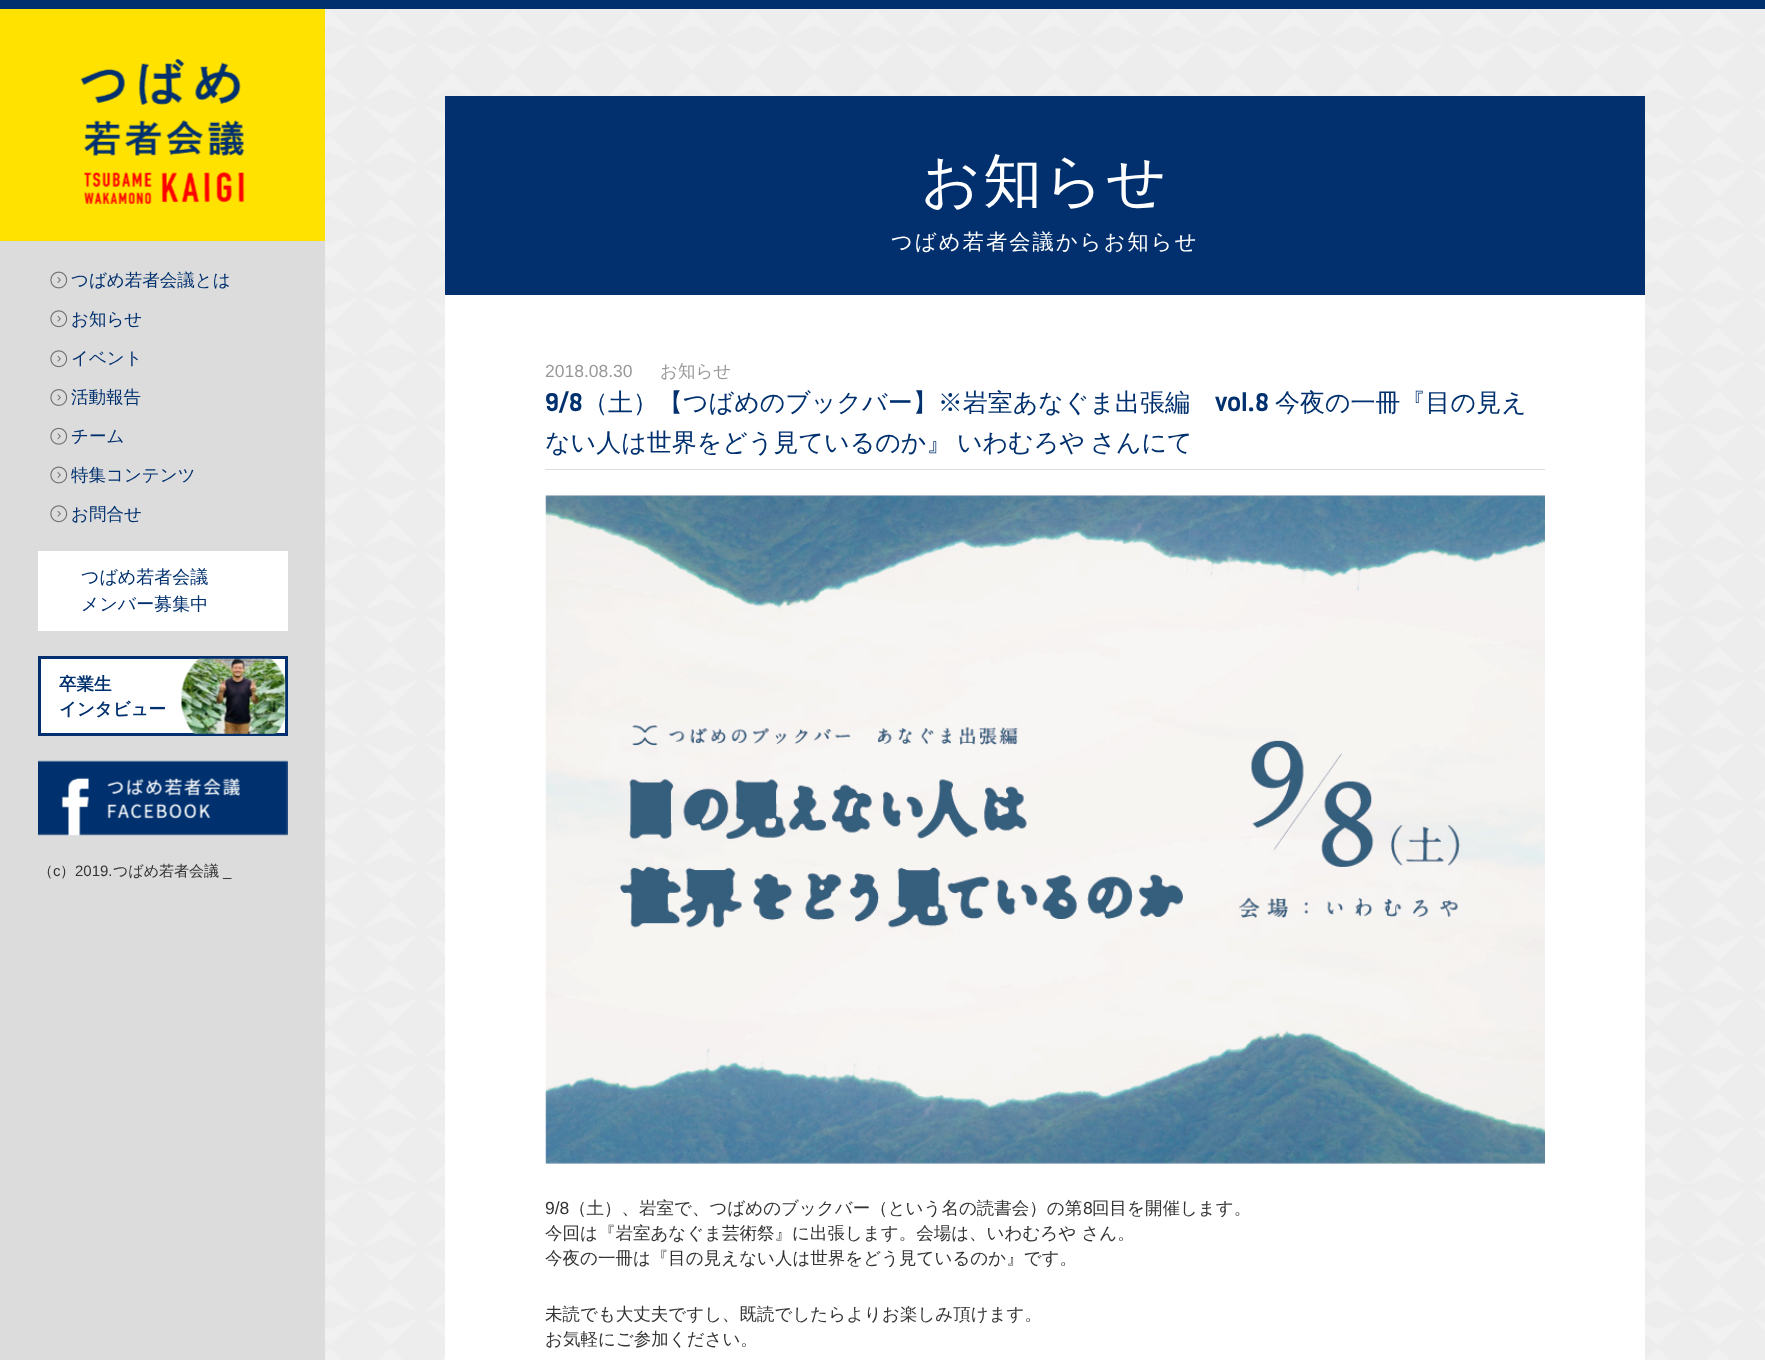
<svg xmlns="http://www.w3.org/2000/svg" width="1765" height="1360">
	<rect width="100%" height="100%" fill="#00306E" />
	<rect x="0" y="241" width="325" height="1119" fill="#DCDCDC" />
	<rect x="0" y="9" width="325" height="232" fill="#FFE200" />
	<image x="80" y="59" width="165" height="145" href="assets/img1.png" />
	<image x="50" y="271" width="18" height="18" href="assets/img2.png" />
	<text x="71" y="286" font-family="WenQuanYi Zen Hei" font-size="17.5" font-weight="500" fill="#00306E">つばめ若者会議とは</text>
	<image x="50" y="310" width="18" height="18" href="assets/img3.png" />
	<text x="71" y="325" font-family="WenQuanYi Zen Hei" font-size="17.5" font-weight="500" fill="#00306E">お知らせ</text>
	<image x="50" y="350" width="18" height="18" href="assets/img3.png" />
	<text x="71" y="364" font-family="WenQuanYi Zen Hei" font-size="17.5" font-weight="500" fill="#00306E">イベント</text>
	<image x="50" y="389" width="18" height="17" href="assets/img4.png" />
	<text x="71" y="403" font-family="WenQuanYi Zen Hei" font-size="17.5" font-weight="500" fill="#00306E">活動報告</text>
	<image x="50" y="428" width="18" height="17" href="assets/img5.png" />
	<text x="71" y="442" font-family="WenQuanYi Zen Hei" font-size="17.5" font-weight="500" fill="#00306E">チーム</text>
	<image x="50" y="466" width="18" height="18" href="assets/img2.png" />
	<text x="71" y="481" font-family="WenQuanYi Zen Hei" font-size="17.5" font-weight="500" fill="#00306E">特集コンテンツ</text>
	<image x="50" y="505" width="18" height="18" href="assets/img3.png" />
	<text x="71" y="520" font-family="WenQuanYi Zen Hei" font-size="17.5" font-weight="500" fill="#00306E">お問合せ</text>
	<rect x="38" y="551" width="250" height="80" fill="#FFFFFF" />
	<g font-family="WenQuanYi Zen Hei" font-size="18" font-weight="500" fill="#00306E">
		<text x="81" y="583">つばめ若者会議</text>
		<text x="81" y="610">メンバー募集中</text>
	</g>
	<rect x="39.5" y="657.5" width="247" height="77" fill="#FFFFFF" stroke="#02306E" stroke-width="3" />
	<g font-family="WenQuanYi Zen Hei" font-size="17.5" font-weight="700" fill="#00306E">
		<text x="59" y="690">卒業生</text>
		<text x="59" y="715">インタビュー</text>
	</g>
	<image x="180" y="658" width="106" height="76" href="assets/img6.png" />
	<image x="38" y="760" width="250" height="76" href="assets/img7.png" />
	<text x="38" y="876" font-family="WenQuanYi Zen Hei" font-size="15" font-weight="500" fill="#333333">（</text>
	<text x="53" y="876" font-family="Liberation Sans" font-size="15" fill="#333333">c</text>
	<text x="60" y="876" font-family="WenQuanYi Zen Hei" font-size="15" font-weight="500" fill="#333333">）</text>
	<text x="75" y="876" font-family="Liberation Sans" font-size="15" fill="#333333">2019.</text>
	<text x="113" y="876" font-family="WenQuanYi Zen Hei" font-size="15" font-weight="500" fill="#333333">つばめ若者会議</text>
	<text x="223" y="876" font-family="Liberation Sans" font-size="15" fill="#333333">_</text>
	<rect x="325" y="9" width="1440" height="1351" fill="#EDEDED" />
	<image x="325" y="10" width="1440" height="1350" href="assets/img8.png" />
	<rect x="445" y="96" width="1200" height="199" fill="#02306E" />
	<text x="921" y="201" font-family="WenQuanYi Zen Hei" font-size="58.75" font-weight="500" letter-spacing="2.1" fill="#FFFFFF">お知らせ</text>
	<text x="891" y="249" font-family="WenQuanYi Zen Hei" font-size="21.25" font-weight="500" letter-spacing="2.1" fill="#FFFFFF">つばめ若者会議からお知らせ</text>
	<rect x="445" y="295" width="1200" height="1065" fill="#FFFFFF" />
	<text x="545" y="377" font-family="Liberation Sans" font-size="17.5" fill="#999999">2018.08.30</text>
	<text x="660" y="377" font-family="WenQuanYi Zen Hei" font-size="17.5" font-weight="500" fill="#999999">お知らせ</text>
	<rect x="545" y="469" width="1000" height="1" fill="#DDDDDD" />
	<text x="545" y="411" font-family="Viga" font-size="25" fill="#00306E">9/8</text>
	<text x="583" y="411" font-family="WenQuanYi Zen Hei" font-size="25" font-weight="500" fill="#00306E">（土）【つばめのブックバー】※岩室あなぐま出張編</text>
	<text x="1215" y="411" font-family="Viga" font-size="25" fill="#00306E">vol.8</text>
	<g font-family="WenQuanYi Zen Hei" font-size="25" font-weight="500" fill="#00306E">
		<text x="1275" y="411">今夜の一冊『目の見え</text>
		<text x="545" y="451" word-spacing="-2">ない人は世界をどう見ているのか』 いわむろや さんにて</text>
	</g>
	<image x="545" y="495" width="1000" height="669" href="assets/img9.png" />
	<text x="545" y="1214" font-family="Liberation Sans" font-size="17.5" fill="#333333">9/8</text>
	<text x="569" y="1214" font-family="WenQuanYi Zen Hei" font-size="17.5" font-weight="500" fill="#333333">（土）、岩室で、つばめのブックバー（という名の読書会）の第</text>
	<text x="1083" y="1214" font-family="Liberation Sans" font-size="17.5" fill="#333333">8</text>
	<g font-family="WenQuanYi Zen Hei" font-size="17.5" font-weight="500" fill="#333333">
		<text x="1092" y="1214">回目を開催します。</text>
		<text x="545" y="1239">今回は『岩室あなぐま芸術祭』に出張します。会場は、いわむろや さん。</text>
		<text x="545" y="1264">今夜の一冊は『目の見えない人は世界をどう見ているのか』です。</text>
		<text x="545" y="1320">未読でも大丈夫ですし、既読でしたらよりお楽しみ頂けます。</text>
		<text x="545" y="1345">お気軽にご参加ください。</text>
	</g>
</svg>
